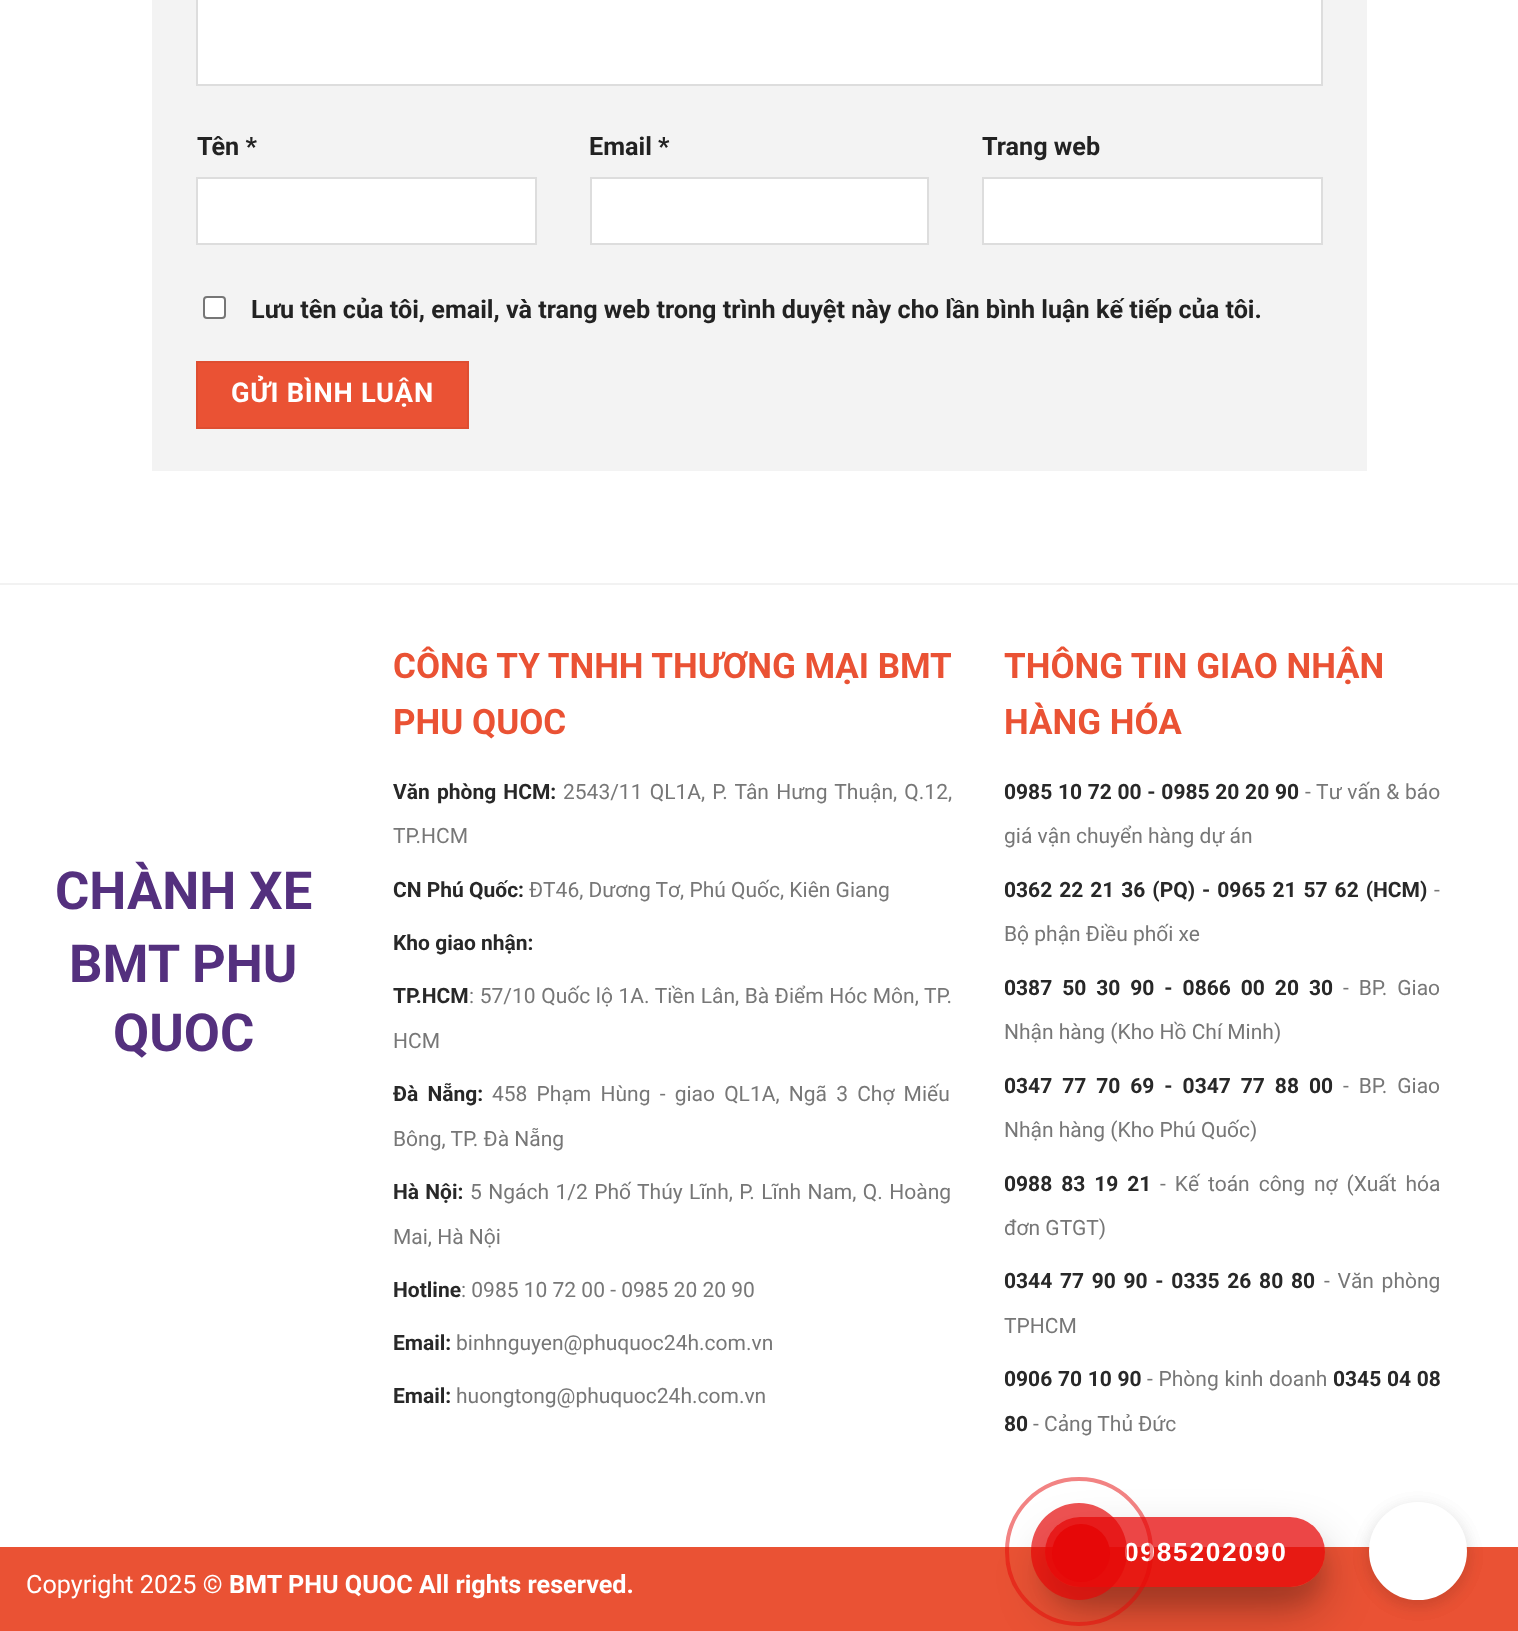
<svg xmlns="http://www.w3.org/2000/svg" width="1518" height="1631">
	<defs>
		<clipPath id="clip1"><path d="M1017 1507H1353V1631H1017ZM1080 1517H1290C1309.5 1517 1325 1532.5 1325 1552C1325 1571.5 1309.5 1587 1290 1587H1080C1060.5 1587 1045 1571.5 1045 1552C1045 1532.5 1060.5 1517 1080 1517Z" clip-rule="evenodd" /></clipPath>
		<clipPath id="clip2"><path d="M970 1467H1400V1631H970ZM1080 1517H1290C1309.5 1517 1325 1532.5 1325 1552C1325 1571.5 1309.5 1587 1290 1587H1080C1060.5 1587 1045 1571.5 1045 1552C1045 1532.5 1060.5 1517 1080 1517Z" clip-rule="evenodd" /></clipPath>
	</defs>
	<rect width="100%" height="100%" fill="#FFFFFF" />
	<rect x="152" y="0" width="1215" height="471" fill="#F3F3F3" />
	<rect x="197" y="-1" width="1125" height="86" fill="#FFFFFF" stroke="#DDDDDD" stroke-width="2" />
	<text x="197" y="155" font-family="Roboto" font-size="25.2" font-weight="700" fill="#222222">Tên *</text>
	<rect x="197" y="178" width="339" height="66" fill="#FFFFFF" stroke="#DDDDDD" stroke-width="2" />
	<text x="589" y="155" font-family="Roboto" font-size="25.2" font-weight="700" fill="#222222">Email *</text>
	<rect x="591" y="178" width="337" height="66" fill="#FFFFFF" stroke="#DDDDDD" stroke-width="2" />
	<text x="982" y="155" font-family="Roboto" font-size="25.2" font-weight="700" fill="#222222">Trang web</text>
	<rect x="983" y="178" width="339" height="66" fill="#FFFFFF" stroke="#DDDDDD" stroke-width="2" />
	<rect x="204" y="297" width="21" height="21" rx="3" fill="#FFFFFF" stroke="#767676" stroke-width="2" />
	<text x="251" y="318" font-family="Roboto" font-size="25.2" font-weight="700" fill="#222222">Lưu tên của tôi, email, và trang web trong trình duyệt này cho lần bình luận kế tiếp của tôi.</text>
	<rect x="197" y="362" width="271" height="66" fill="#EA5234" stroke="#DE4E31" stroke-width="2" />
	<text x="231" y="402" font-family="Roboto" font-size="27.25" font-weight="700" letter-spacing="0.75" fill="#FFFFFF">GỬI BÌNH LUẬN</text>
	<rect x="0" y="583" width="1518" height="2" fill="#F2F2F2" />
	<g font-family="Roboto" font-size="52.5" font-weight="700" fill="#54307E">
		<text x="55" y="909">CHÀNH XE</text>
		<text x="69" y="982">BMT PHU</text>
		<text x="113" y="1051">QUOC</text>
	</g>
	<g font-family="Roboto" font-size="35" font-weight="700" fill="#EA5234">
		<text x="393" y="678">CÔNG TY TNHH THƯƠNG MẠI BMT</text>
		<text x="393" y="734">PHU QUOC</text>
	</g>
	<text x="393" y="799" word-spacing="2" font-family="Roboto" font-size="21" font-weight="700" fill="#282828">Văn phòng HCM:</text>
	<g font-family="Roboto" font-size="21" fill="#777777">
		<text x="563" y="799" word-spacing="2">2543/11 QL1A, P. Tân Hưng Thuận, Q.12,</text>
		<text x="393" y="843">TP.HCM</text>
	</g>
	<text x="393" y="897" font-family="Roboto" font-size="21" font-weight="700" fill="#282828">CN Phú Quốc:</text>
	<text x="529" y="897" font-family="Roboto" font-size="21" fill="#777777">ĐT46, Dương Tơ, Phú Quốc, Kiên Giang</text>
	<g font-family="Roboto" font-size="21" font-weight="700" fill="#282828">
		<text x="393" y="950">Kho giao nhận:</text>
		<text x="393" y="1003">TP.HCM</text>
	</g>
	<g font-family="Roboto" font-size="21" fill="#777777">
		<text x="469" y="1003" word-spacing="0.4">: 57/10 Quốc lộ 1A. Tiền Lân, Bà Điểm Hóc Môn, TP.</text>
		<text x="393" y="1048">HCM</text>
	</g>
	<text x="393" y="1101" word-spacing="4" font-family="Roboto" font-size="21" font-weight="700" fill="#282828">Đà Nẵng:</text>
	<g font-family="Roboto" font-size="21" fill="#777777">
		<text x="492" y="1101" word-spacing="4">458 Phạm Hùng - giao QL1A, Ngã 3 Chợ Miếu</text>
		<text x="393" y="1146">Bông, TP. Đà Nẵng</text>
	</g>
	<text x="393" y="1199" word-spacing="1" font-family="Roboto" font-size="21" font-weight="700" fill="#282828">Hà Nội:</text>
	<g font-family="Roboto" font-size="21" fill="#777777">
		<text x="470" y="1199" word-spacing="1.25">5 Ngách 1/2 Phố Thúy Lĩnh, P. Lĩnh Nam, Q. Hoàng</text>
		<text x="393" y="1244">Mai, Hà Nội</text>
	</g>
	<text x="393" y="1297" font-family="Roboto" font-size="21" font-weight="700" fill="#282828">Hotline</text>
	<text x="461" y="1297" font-family="Roboto" font-size="21" fill="#777777">: 0985 10 72 00 - 0985 20 20 90</text>
	<text x="393" y="1350" font-family="Roboto" font-size="21" font-weight="700" fill="#282828">Email:</text>
	<text x="456" y="1350" font-family="Roboto" font-size="21" fill="#777777">binhnguyen@phuquoc24h.com.vn</text>
	<text x="393" y="1403" font-family="Roboto" font-size="21" font-weight="700" fill="#282828">Email:</text>
	<text x="456" y="1403" font-family="Roboto" font-size="21" fill="#777777">huongtong@phuquoc24h.com.vn</text>
	<g font-family="Roboto" font-size="35" font-weight="700" fill="#EA5234">
		<text x="1004" y="678">THÔNG TIN GIAO NHẬN</text>
		<text x="1004" y="734">HÀNG HÓA</text>
	</g>
	<text x="1004" y="799" word-spacing="0.5" font-family="Roboto" font-size="21" font-weight="700" fill="#282828">0985 10 72 00 - 0985 20 20 90</text>
	<g font-family="Roboto" font-size="21" fill="#777777">
		<text x="1305" y="799" word-spacing="0.5">- Tư vấn &amp; báo</text>
		<text x="1004" y="843">giá vận chuyển hàng dự án</text>
	</g>
	<text x="1004" y="897" word-spacing="1.75" font-family="Roboto" font-size="21" font-weight="700" fill="#282828">0362 22 21 36 (PQ) - 0965 21 57 62 (HCM)</text>
	<g font-family="Roboto" font-size="21" fill="#777777">
		<text x="1434" y="897">-</text>
		<text x="1004" y="941">Bộ phận Điều phối xe</text>
	</g>
	<text x="1004" y="995" word-spacing="4.75" font-family="Roboto" font-size="21" font-weight="700" fill="#282828">0387 50 30 90 - 0866 00 20 30</text>
	<g font-family="Roboto" font-size="21" fill="#777777">
		<text x="1343" y="995" word-spacing="4.75">- BP. Giao</text>
		<text x="1004" y="1039">Nhận hàng (Kho Hồ Chí Minh)</text>
	</g>
	<text x="1004" y="1093" word-spacing="4.75" font-family="Roboto" font-size="21" font-weight="700" fill="#282828">0347 77 70 69 - 0347 77 88 00</text>
	<g font-family="Roboto" font-size="21" fill="#777777">
		<text x="1343" y="1093" word-spacing="4.75">- BP. Giao</text>
		<text x="1004" y="1137">Nhận hàng (Kho Phú Quốc)</text>
	</g>
	<text x="1004" y="1191" word-spacing="3.75" font-family="Roboto" font-size="21" font-weight="700" fill="#282828">0988 83 19 21</text>
	<g font-family="Roboto" font-size="21" fill="#777777">
		<text x="1160" y="1191" word-spacing="3.75">- Kế toán công nợ (Xuất hóa</text>
		<text x="1004" y="1235">đơn GTGT)</text>
	</g>
	<text x="1004" y="1288" word-spacing="2.5" font-family="Roboto" font-size="21" font-weight="700" fill="#282828">0344 77 90 90 - 0335 26 80 80</text>
	<g font-family="Roboto" font-size="21" fill="#777777">
		<text x="1324" y="1288" word-spacing="2.5">- Văn phòng</text>
		<text x="1004" y="1333">TPHCM</text>
	</g>
	<text x="1004" y="1386" word-spacing="0.5" font-family="Roboto" font-size="21" font-weight="700" fill="#282828">0906 70 10 90</text>
	<text x="1147" y="1386" word-spacing="0.5" font-family="Roboto" font-size="21" fill="#777777">- Phòng kinh doanh</text>
	<g font-family="Roboto" font-size="21" font-weight="700" fill="#282828">
		<text x="1333" y="1386" word-spacing="0.5">0345 04 08</text>
		<text x="1004" y="1431">80</text>
	</g>
	<text x="1033" y="1431" font-family="Roboto" font-size="21" fill="#777777">- Cảng Thủ Đức</text>
	<rect x="0" y="1547" width="1518" height="84" fill="#EA5234" />
	<text x="26" y="1593" font-family="Roboto" font-size="25.2" fill="#FFFFFF">Copyright 2025 ©</text>
	<text x="229" y="1593" font-family="Roboto" font-size="25.2" font-weight="700" fill="#FFFFFF">BMT PHU QUOC All rights reserved.</text>
	<g clip-path="url(#clip1)">
		<rect x="1045" y="1535" width="280" height="70" rx="35" fill="#000000" fill-opacity="0.1" filter="blur(9px)" />
	</g>
	<g clip-path="url(#clip2)">
		<rect x="1045" y="1542" width="280" height="70" rx="35" fill="#000000" fill-opacity="0.25" filter="blur(24.5px)" />
	</g>
	<rect x="1045" y="1517" width="280" height="70" rx="35" fill="#E60808" fill-opacity="0.75" />
	<text x="1124" y="1561" font-family="Liberation Sans" font-size="26.25" font-weight="700" letter-spacing="1.75" fill="#FFFFFF">0985202090</text>
	<rect x="1007" y="1479" width="144" height="145" rx="72" fill="none" stroke="#E60808" stroke-opacity="0.5" stroke-width="4" />
	<rect x="1031" y="1503" width="96" height="97" rx="48" fill="#E60808" fill-opacity="0.7" />
	<circle cx="1081" cy="1553" r="29" fill="#E60808" />
	<rect x="1369" y="1507" width="98" height="98" rx="49" fill="#000000" fill-opacity="0.08" filter="blur(9px)" />
	<rect x="1369" y="1507" width="98" height="98" rx="49" fill="#000000" fill-opacity="0.08" filter="blur(9px)" />
	<circle cx="1418" cy="1551" r="44.5" fill="#FFFFFF" stroke="#FFFFFF" stroke-width="9" />
</svg>
